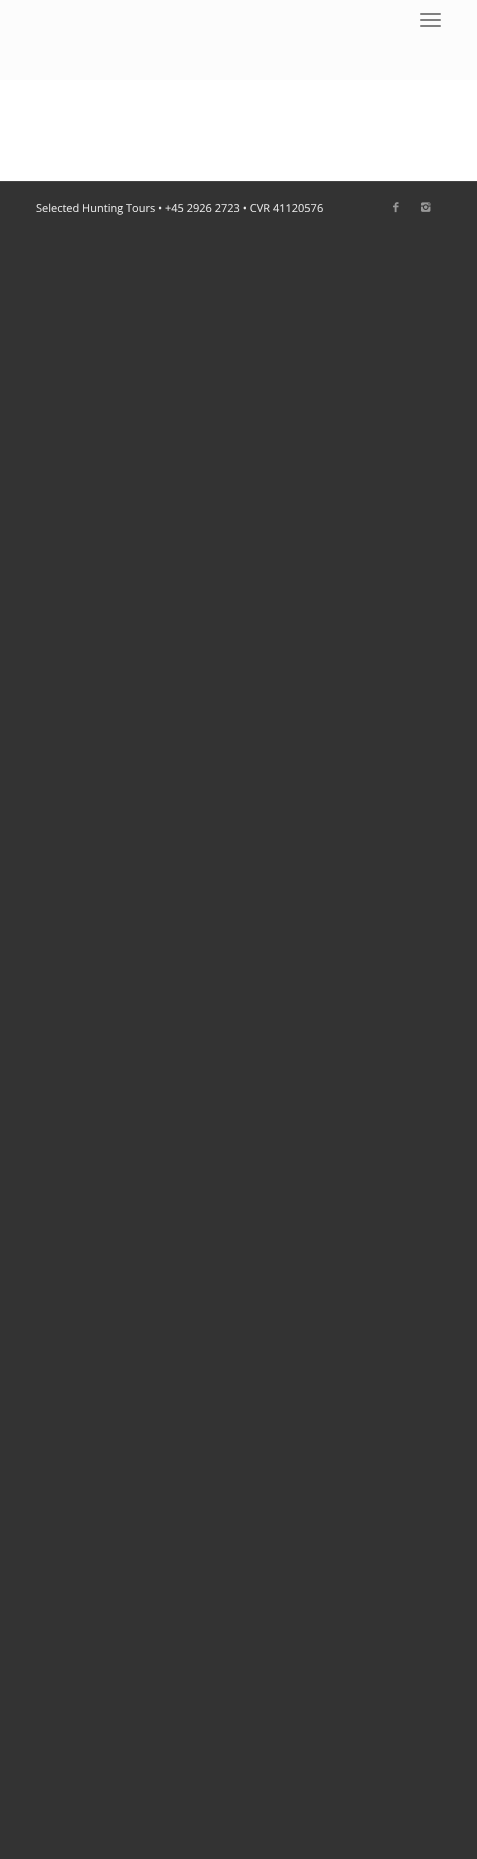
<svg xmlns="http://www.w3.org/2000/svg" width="477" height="1859">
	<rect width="100%" height="100%" fill="#333333" />
	<rect x="0" y="0" width="477" height="80" fill="#FCFCFC" />
	<rect x="420" y="19" width="21" height="2" rx="1" fill="#808080" />
	<rect x="420" y="13" width="21" height="2" rx="1" fill="#808080" />
	<rect x="420" y="25" width="21" height="2" rx="1" fill="#808080" />
	<rect x="0" y="80" width="477" height="101" fill="#FFFFFF" />
	<rect x="0" y="181" width="477" height="1" fill="#444444" />
	<text x="36" y="212" font-family="Open Sans" font-size="11" fill="#EEEEEE">Selected Hunting Tours • +45 2926 2723 • CVR 41120576</text>
	<image x="393" y="202" width="6" height="11" href="assets/img1.png" />
	<image x="421" y="202" width="10" height="10" href="assets/img2.png" />
</svg>
